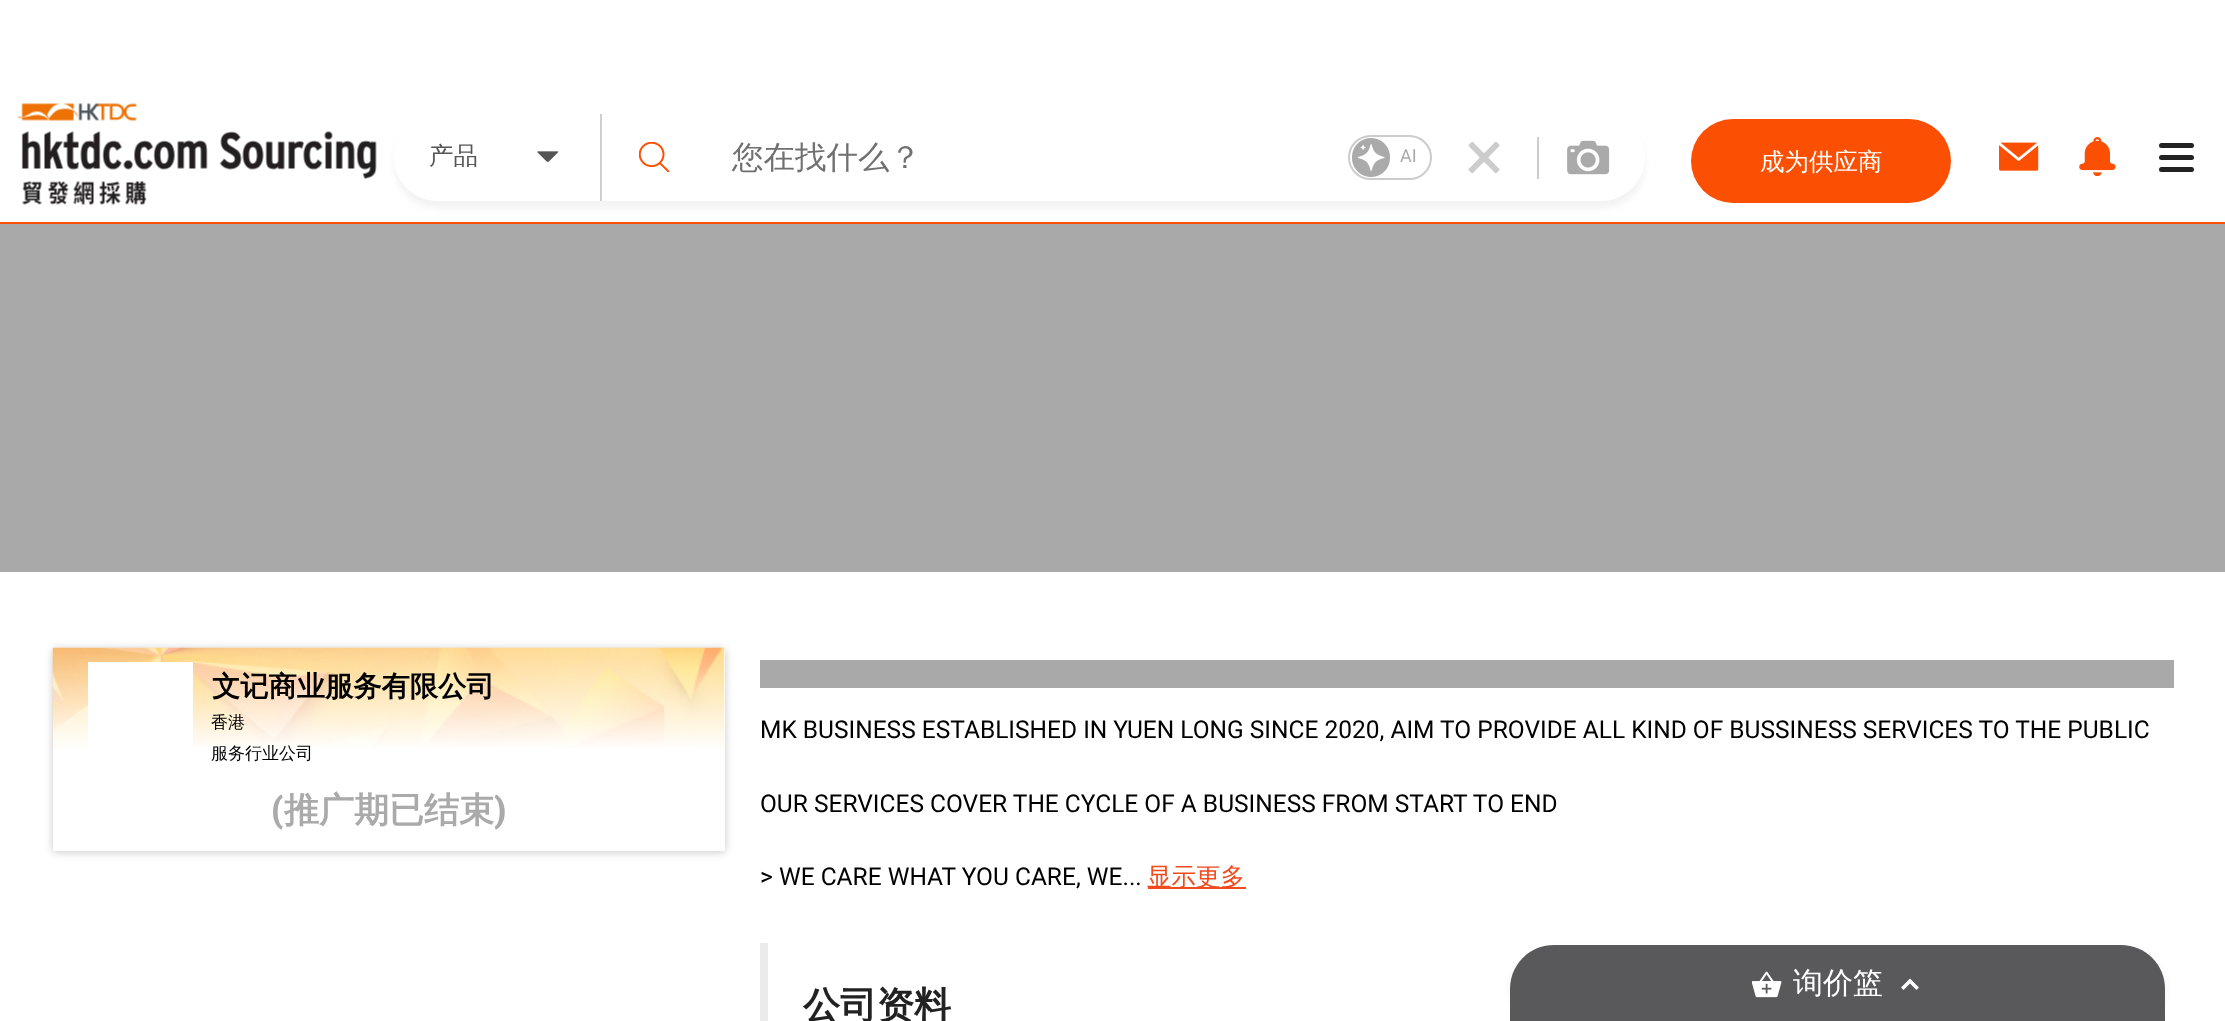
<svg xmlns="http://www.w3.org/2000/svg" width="2225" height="1021">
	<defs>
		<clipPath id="clip1"><path d="M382 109H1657V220H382ZM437.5 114H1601.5C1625.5 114 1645 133.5 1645 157.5C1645 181.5 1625.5 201 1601.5 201H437.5C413.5 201 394 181.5 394 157.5C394 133.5 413.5 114 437.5 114Z" clip-rule="evenodd" /></clipPath>
	</defs>
	<rect width="100%" height="100%" fill="#FFFFFF" />
	<rect x="0" y="222" width="2225" height="2" fill="#FB5004" />
	<image x="17" y="103" width="360" height="102" href="assets/img1.png" />
	<g clip-path="url(#clip1)">
		<rect x="394" y="121" width="1251" height="87" rx="43.5" fill="#7F7F7F" fill-opacity="0.1" filter="blur(3.5px)" />
	</g>
	<rect x="600" y="114" width="2" height="87" fill="#CFCFCF" />
	<text x="429" y="164" font-family="WenQuanYi Zen Hei" font-size="24.5" font-weight="500" fill="#555555">产品</text>
	<image x="537" y="151" width="22" height="11" href="assets/img2.png" />
	<image x="639" y="142" width="31" height="30" href="assets/img3.png" />
	<text x="732" y="168" font-family="WenQuanYi Zen Hei" font-size="31.5" font-weight="500" fill="#707070">您在找什么？</text>
	<rect x="1349" y="136" width="82" height="43" rx="21.5" fill="none" stroke="#CCCCCC" stroke-width="2" />
	<image x="1352" y="138" width="38" height="39" href="assets/img4.png" />
	<text x="1400" y="162" font-family="Roboto" font-size="18" fill="#AAAAAA">AI</text>
	<image x="1468" y="141" width="32" height="33" href="assets/img5.png" />
	<rect x="1537" y="137" width="2" height="42" fill="#CCCCCC" />
	<image x="1567" y="140" width="43" height="35" href="assets/img6.png" />
	<rect x="1691" y="119" width="260" height="84" rx="42" fill="#FB5004" />
	<text x="1760" y="170" font-family="WenQuanYi Zen Hei" font-size="24.5" font-weight="500" fill="#FFFFFF">成为供应商</text>
	<image x="1999" y="142" width="40" height="29" href="assets/img7.png" />
	<image x="2079" y="137" width="37" height="39" href="assets/img8.png" />
	<rect x="2159" y="143" width="35" height="5" rx="2.5" fill="#222222" />
	<rect x="2159" y="155" width="35" height="5" rx="2.5" fill="#222222" />
	<rect x="2159" y="167" width="35" height="5" rx="2.5" fill="#222222" />
	<rect x="0" y="224" width="2225" height="348" fill="#A9A9A9" />
	<rect x="53" y="649" width="672" height="203" rx="2" fill="#070001" fill-opacity="0.22" filter="blur(4.5px)" />
	<rect x="53" y="648" width="672" height="203" rx="2" fill="#FFFFFF" />
	<image x="52" y="647" width="673" height="101" href="assets/img9.png" />
	<rect x="88" y="662" width="105" height="86" fill="#FFFFFF" />
	<text x="212" y="696" font-family="WenQuanYi Zen Hei" font-size="28.25" font-weight="700" fill="#000000">文记商业服务有限公司</text>
	<g font-family="WenQuanYi Zen Hei" font-size="17" font-weight="500" fill="#000000">
		<text x="211" y="728">香港</text>
		<text x="211" y="759">服务行业公司</text>
	</g>
	<text x="271" y="822" font-family="Roboto" font-size="35" font-weight="900" fill="#AAAAAA">(</text>
	<text x="284" y="822" font-family="WenQuanYi Zen Hei" font-size="35" font-weight="700" fill="#AAAAAA">推广期已结束</text>
	<text x="494" y="822" font-family="Roboto" font-size="35" font-weight="900" fill="#AAAAAA">)</text>
	<rect x="760" y="660" width="1414" height="28" fill="#A9A9A9" />
	<g font-family="Roboto" font-size="24.5" fill="#000000">
		<text x="760" y="738">MK BUSINESS ESTABLISHED IN YUEN LONG SINCE 2020, AIM TO PROVIDE ALL KIND OF BUSSINESS SERVICES TO THE PUBLIC</text>
		<text x="760" y="812">OUR SERVICES COVER THE CYCLE OF A BUSINESS FROM START TO END</text>
		<text x="760" y="885">&gt; WE CARE WHAT YOU CARE, WE...</text>
	</g>
	<rect x="1148" y="887" width="98" height="2" fill="#F14A1C" />
	<text x="1147" y="885" font-family="WenQuanYi Zen Hei" font-size="24.5" font-weight="500" fill="#F14A1C">显示更多</text>
	<rect x="760" y="943" width="8" height="78" fill="#EBEBEB" />
	<text x="803" y="1018" font-family="WenQuanYi Zen Hei" font-size="37" font-weight="700" fill="#222222">公司资料</text>
	<rect x="1510" y="950" width="655" height="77" rx="44" fill="#000000" fill-opacity="0.06" filter="blur(4.5px)" />
	<path d="M1554 945H2121C2145.5 945 2165 964.5 2165 989V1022H1510V989C1510 964.5 1529.5 945 1554 945Z" fill="#59595B" />
	<image x="1752" y="971" width="30" height="27" href="assets/img10.png" />
	<text x="1793" y="993" font-family="WenQuanYi Zen Hei" font-size="30" font-weight="500" fill="#FFFFFF">询价篮</text>
	<path d="M1903.5 990L1910 983.5L1916.5 990L1919 987.5L1910 978.5L1901 987.5Z" fill="#FFFFFF" />
</svg>
